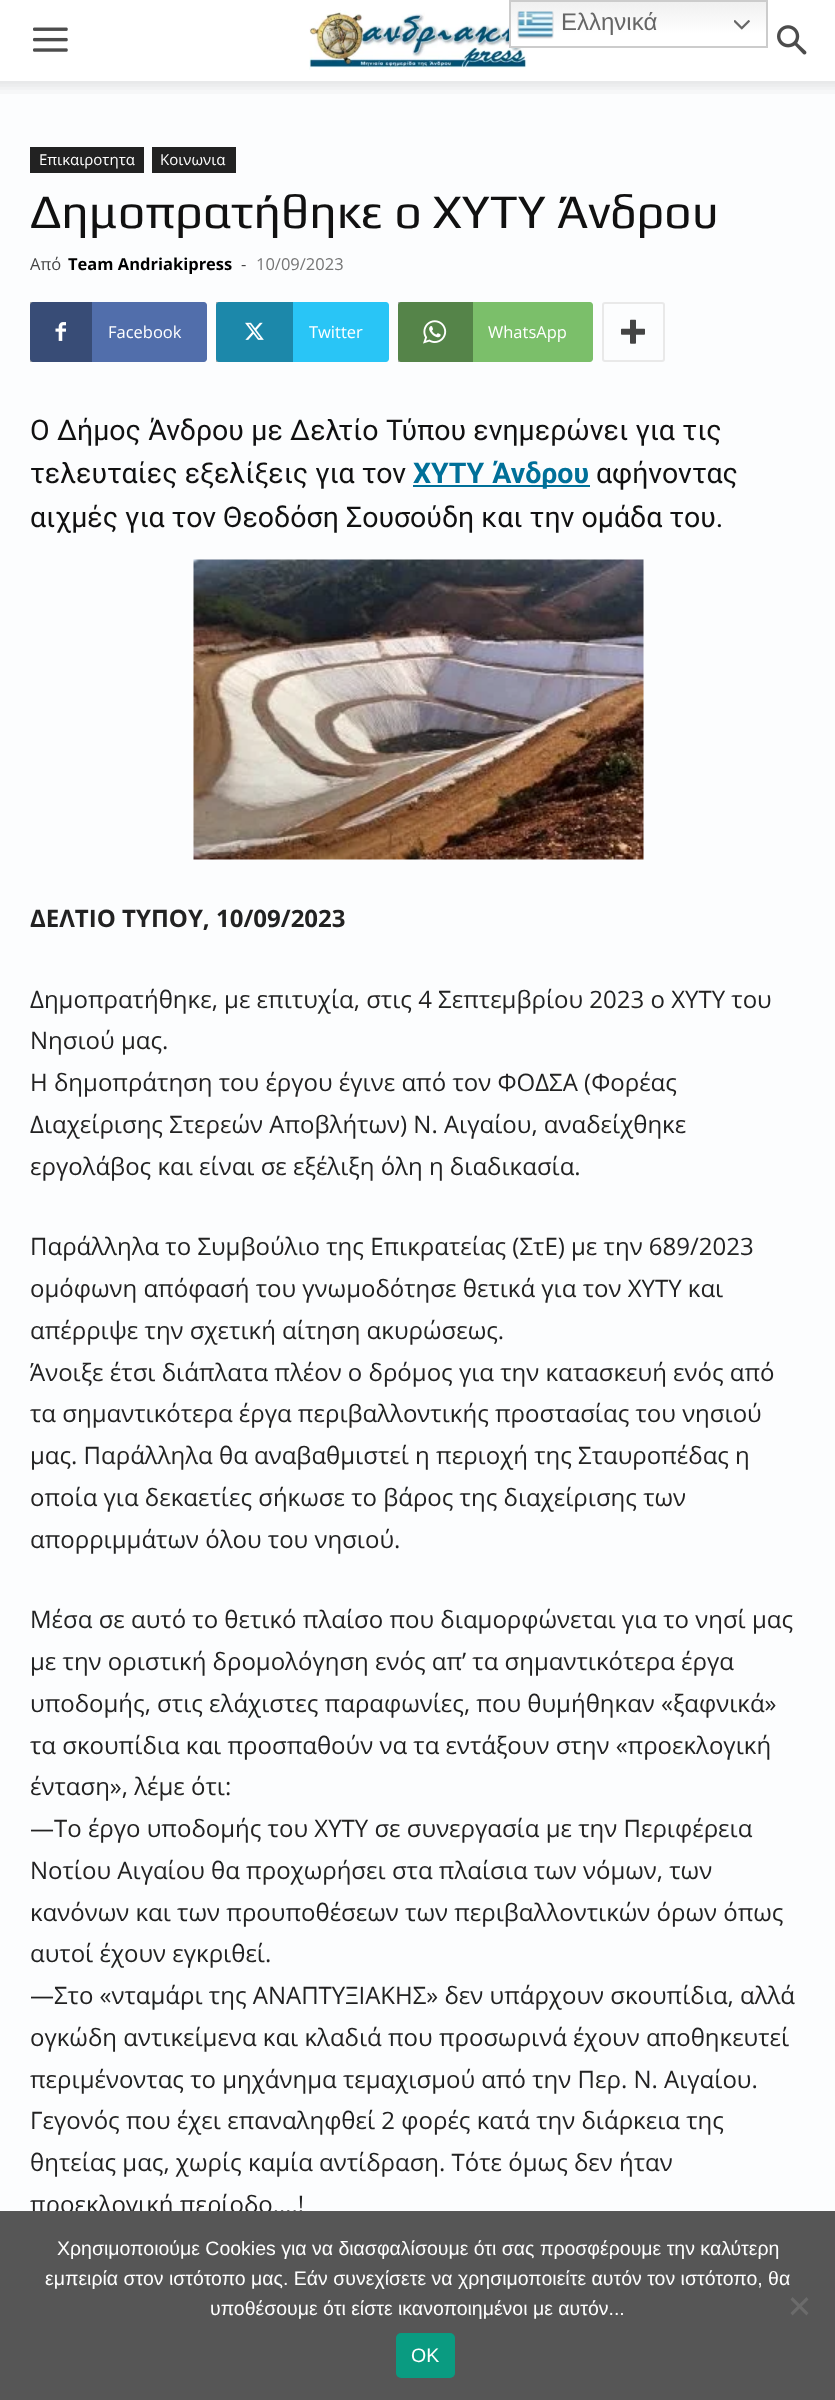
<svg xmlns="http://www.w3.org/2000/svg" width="835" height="2400">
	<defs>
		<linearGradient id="g1" gradientUnits="userSpaceOnUse" x1="638" y1="0" x2="638" y2="48"><stop offset="0" stop-color="#EFEFEF" /><stop offset="0.7" stop-color="#FFFFFF" /></linearGradient>
	</defs>
	<rect width="100%" height="100%" fill="#FCFDFE" />
	<rect x="398" y="302" width="3" height="60" fill="#AEAFAF" />
	<rect x="216" y="302" width="3" height="60" fill="#AEAFAF" />
	<rect x="30" y="302" width="3" height="60" fill="#AEAFAF" />
	<rect x="0" y="0" width="835" height="81" fill="#FFFFFF" />
	<image x="309" y="10" width="218" height="60" href="assets/img4.png" />
	<rect x="511" y="2" width="255" height="44" fill="url(#g1)" />
	<rect x="510" y="1" width="257" height="46" fill="none" stroke="#CCCCCC" stroke-width="2" />
	<image x="517" y="11" width="37" height="28" href="assets/img1.png" />
	<text x="561" y="30" font-family="Liberation Sans" font-size="24" fill="#666666">Ελληνικά</text>
	<image x="734" y="20" width="16" height="10" href="assets/img2.png" />
	<image x="33" y="27" width="35" height="25" href="assets/img3.png" />
	<image x="777" y="25" width="30" height="30" href="assets/img5.png" />
	<image x="0" y="81" width="835" height="13" href="assets/img6.png" />
	<rect x="30" y="147" width="114" height="26" fill="#222222" />
	<text x="39" y="165" font-family="Open Sans" font-size="15" fill="#FFFFFF">Επικαιροτητα</text>
	<rect x="152" y="147" width="84" height="26" fill="#222222" />
	<text x="160" y="165" font-family="Open Sans" font-size="15" fill="#FFFFFF">Κοινωνια</text>
	<text x="30" y="228" font-family="Play" font-size="48" fill="#111111">Δημοπρατήθηκε ο ΧΥΤΥ Άνδρου</text>
	<text x="30" y="270" font-family="Open Sans" font-size="16.5" fill="#444444">Από</text>
	<text x="68" y="270" font-family="Open Sans" font-size="16.5" font-weight="700" fill="#000000">Team Andriakipress</text>
	<text x="241" y="270" font-family="Open Sans" font-size="16.5" fill="#444444">-</text>
	<text x="256" y="270" font-family="Open Sans" font-size="16.5" fill="#767676">10/09/2023</text>
	<path d="M83 302H204C205.5 302 207 303.5 207 305V359C207 360.5 205.5 362 204 362H83Z" fill="#516EAB" />
	<path d="M33 302H92V362H33C31.5 362 30 360.5 30 359V305C30 303.5 31.5 302 33 302Z" fill="#384C76" />
	<image x="55" y="322" width="11" height="19" href="assets/img7.png" />
	<text x="108" y="338" font-family="Open Sans" font-size="16.5" fill="#FFFFFF">Facebook</text>
	<path d="M284 302H386C387.5 302 389 303.5 389 305V359C389 360.5 387.5 362 386 362H284Z" fill="#29C5F6" />
	<path d="M219 302H293V362H219C217.5 362 216 360.5 216 359V305C216 303.5 217.5 302 219 302Z" fill="#1C88AA" />
	<image x="245" y="322" width="19" height="18" href="assets/img8.png" />
	<text x="309" y="338" font-family="Open Sans" font-size="16.5" fill="#FFFFFF">Twitter</text>
	<path d="M464 302H590C591.5 302 593 303.5 593 305V359C593 360.5 591.5 362 590 362H464Z" fill="#7BBF6A" />
	<path d="M401 302H473V362H401C399.5 362 398 360.5 398 359V305C398 303.5 399.5 302 401 302Z" fill="#558449" />
	<image x="423" y="320" width="24" height="24" href="assets/img9.png" />
	<text x="488" y="338" font-family="Open Sans" font-size="16.5" fill="#FFFFFF">WhatsApp</text>
	<rect x="603" y="303" width="61" height="58" rx="2" fill="none" stroke="#E9E9E9" stroke-width="2" />
	<image x="621" y="319" width="24" height="25" href="assets/img10.png" />
	<g font-family="Roboto" font-size="28.5" fill="#111111">
		<text x="30" y="440" word-spacing="0.25">Ο Δήμος Άνδρου με Δελτίο Τύπου ενημερώνει για τις</text>
		<text x="30" y="483">τελευταίες εξελίξεις για τον</text>
	</g>
	<rect x="413" y="485" width="177" height="2" fill="#007099" />
	<text x="413" y="483" word-spacing="1" font-family="Roboto" font-size="28.5" font-weight="700" fill="#007099">ΧΥΤΥ Άνδρου</text>
	<g font-family="Roboto" font-size="28.5" fill="#111111">
		<text x="596" y="483">αφήνοντας</text>
		<text x="30" y="527">αιχμές για τον Θεοδόση Σουσούδη και την ομάδα του.</text>
	</g>
	<image x="193" y="559" width="451" height="301" href="assets/img11.png" />
	<text x="30" y="927" font-family="Open Sans" font-size="24" font-weight="700" fill="#222222">ΔΕΛΤΙΟ ΤΥΠΟΥ, 10/09/2023</text>
	<g font-family="Open Sans" font-size="24" fill="#222222">
		<text x="30" y="1008">Δημοπρατήθηκε, με επιτυχία, στις 4 Σεπτεμβρίου 2023 ο ΧΥΤΥ του</text>
		<text x="30" y="1049">Νησιού μας.</text>
		<text x="30" y="1091">Η δημοπράτηση του έργου έγινε από τον ΦΟΔΣΑ (Φορέας</text>
		<text x="30" y="1133">Διαχείρισης Στερεών Αποβλήτων) Ν. Αιγαίου, αναδείχθηκε</text>
		<text x="30" y="1175">εργολάβος και είναι σε εξέλιξη όλη η διαδικασία.</text>
		<text x="30" y="1255">Παράλληλα το Συμβούλιο της Επικρατείας (ΣτΕ) με την 689/2023</text>
		<text x="30" y="1297">ομόφωνη απόφασή του γνωμοδότησε θετικά για τον ΧΥΤΥ και</text>
		<text x="30" y="1339">απέρριψε την σχετική αίτηση ακυρώσεως.</text>
		<text x="30" y="1381">Άνοιξε έτσι διάπλατα πλέον ο δρόμος για την κατασκευή ενός από</text>
		<text x="30" y="1422">τα σημαντικότερα έργα περιβαλλοντικής προστασίας του νησιού</text>
		<text x="30" y="1464">μας. Παράλληλα θα αναβαθμιστεί η περιοχή της Σταυροπέδας η</text>
		<text x="30" y="1506">οποία για δεκαετίες σήκωσε το βάρος της διαχείρισης των</text>
		<text x="30" y="1548">απορριμμάτων όλου του νησιού.</text>
		<text x="30" y="1628">Μέσα σε αυτό το θετικό πλαίσο που διαμορφώνεται για το νησί μας</text>
		<text x="30" y="1670">με την οριστική δρομολόγηση ενός απ’ τα σημαντικότερα έργα</text>
		<text x="30" y="1712">υποδομής, στις ελάχιστες παραφωνίες, που θυμήθηκαν «ξαφνικά»</text>
		<text x="30" y="1754">τα σκουπίδια και προσπαθούν να τα εντάξουν στην «προεκλογική</text>
		<text x="30" y="1795">ένταση», λέμε ότι:</text>
		<text x="30" y="1837">—Το έργο υποδομής του ΧΥΤΥ σε συνεργασία με την Περιφέρεια</text>
		<text x="30" y="1879">Νοτίου Αιγαίου θα προχωρήσει στα πλαίσια των νόμων, των</text>
		<text x="30" y="1921">κανόνων και των προυποθέσεων των περιβαλλοντικών όρων όπως</text>
		<text x="30" y="1962">αυτοί έχουν εγκριθεί.</text>
		<text x="30" y="2004">—Στο «νταμάρι της ΑΝΑΠΤΥΞΙΑΚΗΣ» δεν υπάρχουν σκουπίδια, αλλά</text>
		<text x="30" y="2046">ογκώδη αντικείμενα και κλαδιά που προσωρινά έχουν αποθηκευτεί</text>
		<text x="30" y="2088">περιμένοντας το μηχάνημα τεμαχισμού από την Περ. Ν. Αιγαίου.</text>
		<text x="30" y="2129">Γεγονός που έχει επαναληφθεί 2 φορές κατά την διάρκεια της</text>
		<text x="30" y="2171">θητείας μας, χωρίς καμία αντίδραση. Τότε όμως δεν ήταν</text>
		<text x="30" y="2213">προεκλογική περίοδο….!</text>
	</g>
	<rect x="0" y="2211" width="835" height="189" fill="#565656" />
	<g font-family="Liberation Sans" font-size="19.5" fill="#FFFFFF">
		<text x="57" y="2255">Χρησιμοποιούμε Cookies για να διασφαλίσουμε ότι σας προσφέρουμε την καλύτερη</text>
		<text x="45" y="2285">εμπειρία στον ιστότοπο μας. Εάν συνεχίσετε να χρησιμοποιείτε αυτόν τον ιστότοπο, θα</text>
		<text x="210" y="2315">υποθέσουμε ότι είστε ικανοποιημένοι με αυτόν...</text>
	</g>
	<path d="M806.5 2297L808.5 2299.5L792.5 2315.5L790.5 2313Z" fill="#6B6B6B" />
	<path d="M790.5 2299.5L792.5 2297L808.5 2313L806.5 2315.5Z" fill="#6B6B6B" />
	<rect x="396" y="2333" width="59" height="45" rx="5" fill="#0A9B81" />
	<text x="411" y="2362" font-family="Liberation Sans" font-size="19.5" fill="#FFFFFF">OK</text>
</svg>
